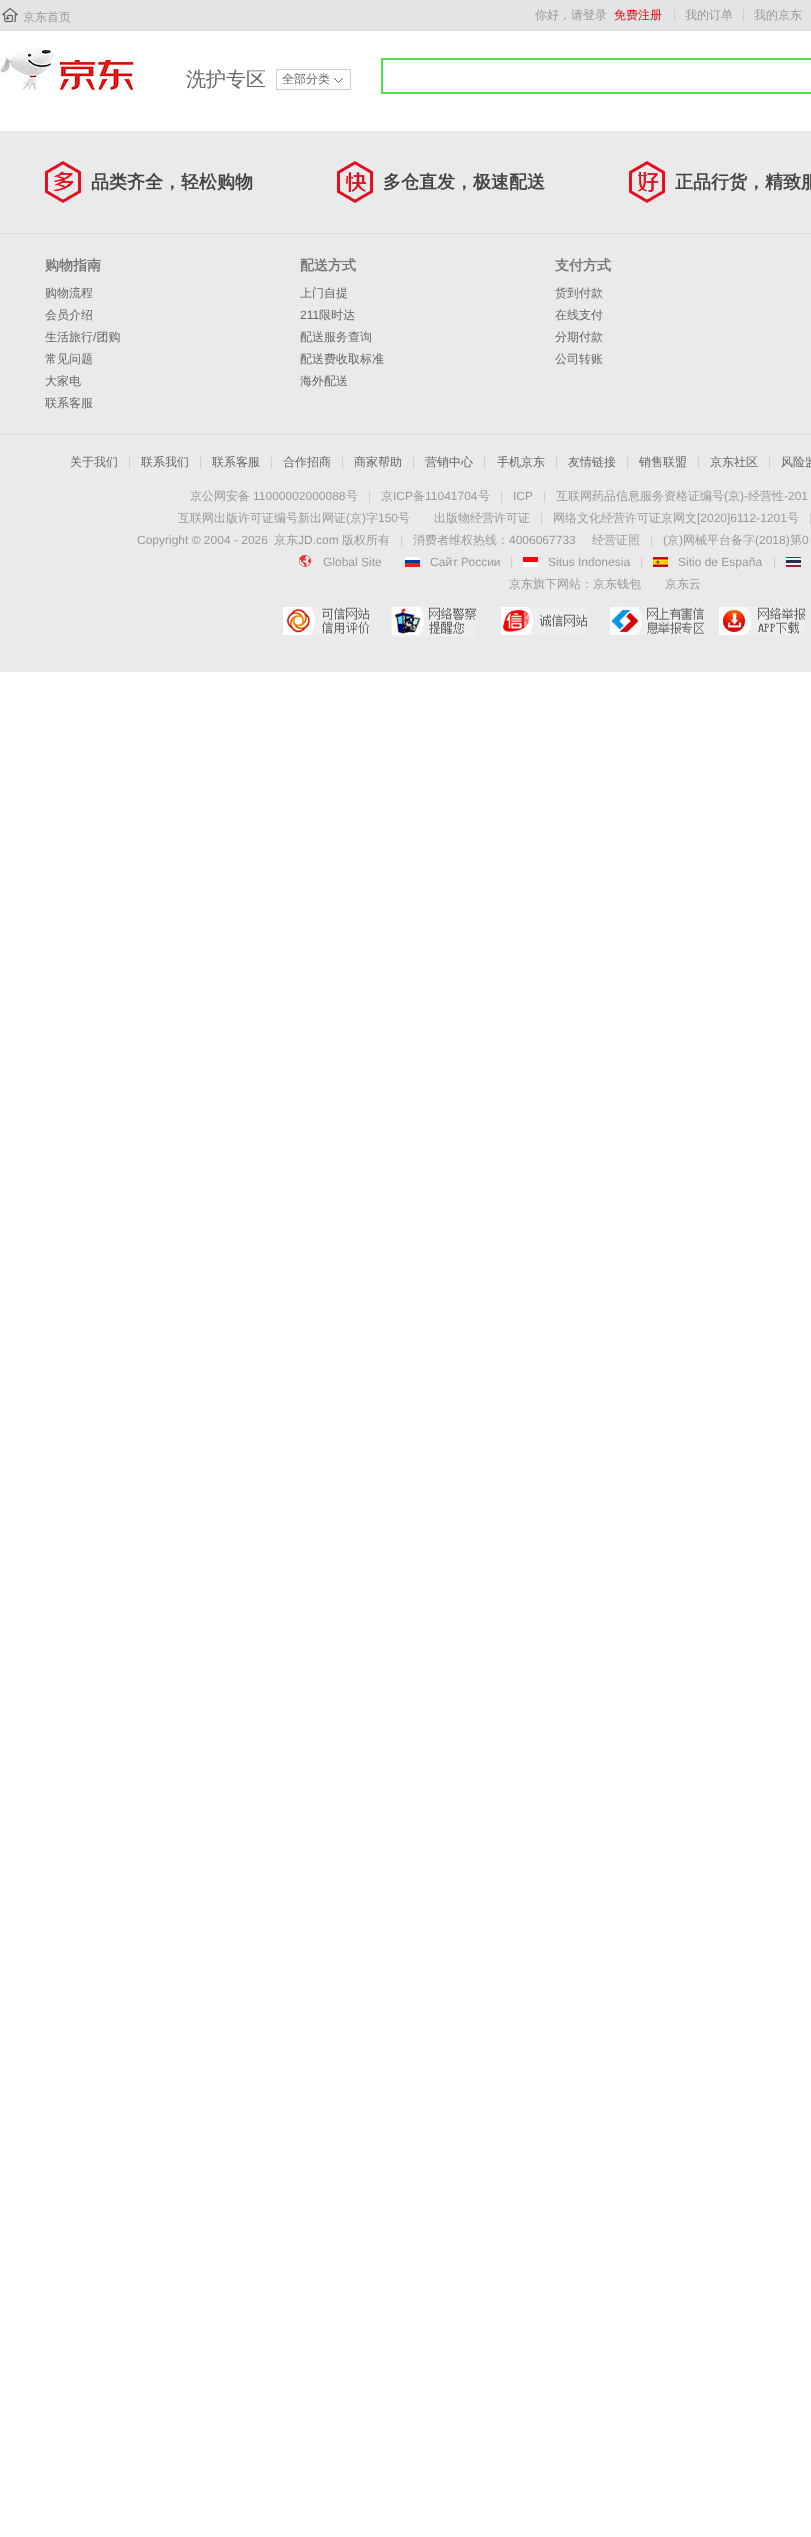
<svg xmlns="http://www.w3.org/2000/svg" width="811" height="2537">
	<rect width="100%" height="100%" fill="#FFFFFF" />
	<rect x="0" y="0" width="811" height="30" fill="#E3E4E5" />
	<rect x="0" y="30" width="811" height="1" fill="#DDDDDD" />
	<image x="2" y="8" width="16" height="15" href="assets/img1.png" />
	<g font-family="WenQuanYi Zen Hei" font-size="12" font-weight="500" fill="#999999">
		<text x="23" y="21">京东首页</text>
		<text x="535" y="19">你好，请登录</text>
	</g>
	<text x="614" y="19" font-family="WenQuanYi Zen Hei" font-size="12" font-weight="500" fill="#F30213">免费注册</text>
	<rect x="674" y="9" width="1" height="12" fill="#CCCCCC" />
	<text x="685" y="19" font-family="WenQuanYi Zen Hei" font-size="12" font-weight="500" fill="#999999">我的订单</text>
	<rect x="743" y="9" width="1" height="12" fill="#CCCCCC" />
	<text x="754" y="19" font-family="WenQuanYi Zen Hei" font-size="12" font-weight="500" fill="#999999">我的京东</text>
	<image x="0" y="48" width="134" height="42" href="assets/img2.png" />
	<text x="186" y="86" font-family="WenQuanYi Zen Hei" font-size="20" font-weight="500" fill="#666666">洗护专区</text>
	<rect x="276.5" y="69.5" width="74" height="20" fill="none" stroke="#CCCCCC" />
	<text x="282" y="83" font-family="WenQuanYi Zen Hei" font-size="12" font-weight="500" fill="#666666">全部分类</text>
	<image x="334" y="78" width="9" height="5" href="assets/img3.png" />
	<rect x="381" y="58" width="430" height="2" fill="#4CE04C" />
	<rect x="381" y="92" width="430" height="2" fill="#4CE04C" />
	<rect x="381" y="58" width="2" height="36" fill="#4CE04C" />
	<rect x="0" y="131" width="811" height="541" fill="#EAEAEA" />
	<image x="45" y="161" width="36" height="42" href="assets/img4.png" />
	<text x="91" y="188" font-family="WenQuanYi Zen Hei" font-size="18" font-weight="700" fill="#444444">品类齐全，轻松购物</text>
	<image x="337" y="161" width="36" height="42" href="assets/img5.png" />
	<text x="383" y="188" font-family="WenQuanYi Zen Hei" font-size="18" font-weight="700" fill="#444444">多仓直发，极速配送</text>
	<image x="629" y="161" width="36" height="42" href="assets/img6.png" />
	<text x="675" y="188" font-family="WenQuanYi Zen Hei" font-size="18" font-weight="700" fill="#444444">正品行货，精致服</text>
	<rect x="0" y="233" width="811" height="1" fill="#DEDEDE" />
	<rect x="0" y="434" width="811" height="1" fill="#DEDEDE" />
	<text x="45" y="270" font-family="WenQuanYi Zen Hei" font-size="14" font-weight="700" fill="#777777">购物指南</text>
	<g font-family="WenQuanYi Zen Hei" font-size="12" font-weight="500" fill="#666666">
		<text x="45" y="297">购物流程</text>
		<text x="45" y="319">会员介绍</text>
		<text x="45" y="341">生活旅行 团购</text>
	</g>
	<text x="93" y="341" font-family="Liberation Sans" font-size="12" fill="#666666">/</text>
	<g font-family="WenQuanYi Zen Hei" font-size="12" font-weight="500" fill="#666666">
		<text x="45" y="363">常见问题</text>
		<text x="45" y="385">大家电</text>
		<text x="45" y="407">联系客服</text>
	</g>
	<text x="300" y="270" font-family="WenQuanYi Zen Hei" font-size="14" font-weight="700" fill="#777777">配送方式</text>
	<text x="300" y="297" font-family="WenQuanYi Zen Hei" font-size="12" font-weight="500" fill="#666666">上门自提</text>
	<text x="300" y="319" font-family="Liberation Sans" font-size="12" fill="#666666">211</text>
	<g font-family="WenQuanYi Zen Hei" font-size="12" font-weight="500" fill="#666666">
		<text x="319" y="319">限时达</text>
		<text x="300" y="341">配送服务查询</text>
		<text x="300" y="363">配送费收取标准</text>
		<text x="300" y="385">海外配送</text>
	</g>
	<text x="555" y="270" font-family="WenQuanYi Zen Hei" font-size="14" font-weight="700" fill="#777777">支付方式</text>
	<g font-family="WenQuanYi Zen Hei" font-size="12" font-weight="500" fill="#666666">
		<text x="555" y="297">货到付款</text>
		<text x="555" y="319">在线支付</text>
		<text x="555" y="341">分期付款</text>
		<text x="555" y="363">公司转账</text>
		<text x="70" y="466">关于我们</text>
	</g>
	<text x="128" y="466" font-family="Liberation Sans" font-size="12" fill="#CCCCCC">|</text>
	<text x="141" y="466" font-family="WenQuanYi Zen Hei" font-size="12" font-weight="500" fill="#666666">联系我们</text>
	<text x="199" y="466" font-family="Liberation Sans" font-size="12" fill="#CCCCCC">|</text>
	<text x="212" y="466" font-family="WenQuanYi Zen Hei" font-size="12" font-weight="500" fill="#666666">联系客服</text>
	<text x="270" y="466" font-family="Liberation Sans" font-size="12" fill="#CCCCCC">|</text>
	<text x="283" y="466" font-family="WenQuanYi Zen Hei" font-size="12" font-weight="500" fill="#666666">合作招商</text>
	<text x="341" y="466" font-family="Liberation Sans" font-size="12" fill="#CCCCCC">|</text>
	<text x="354" y="466" font-family="WenQuanYi Zen Hei" font-size="12" font-weight="500" fill="#666666">商家帮助</text>
	<text x="412" y="466" font-family="Liberation Sans" font-size="12" fill="#CCCCCC">|</text>
	<text x="425" y="466" font-family="WenQuanYi Zen Hei" font-size="12" font-weight="500" fill="#666666">营销中心</text>
	<text x="483" y="466" font-family="Liberation Sans" font-size="12" fill="#CCCCCC">|</text>
	<text x="497" y="466" font-family="WenQuanYi Zen Hei" font-size="12" font-weight="500" fill="#666666">手机京东</text>
	<text x="555" y="466" font-family="Liberation Sans" font-size="12" fill="#CCCCCC">|</text>
	<text x="568" y="466" font-family="WenQuanYi Zen Hei" font-size="12" font-weight="500" fill="#666666">友情链接</text>
	<text x="626" y="466" font-family="Liberation Sans" font-size="12" fill="#CCCCCC">|</text>
	<text x="639" y="466" font-family="WenQuanYi Zen Hei" font-size="12" font-weight="500" fill="#666666">销售联盟</text>
	<text x="697" y="466" font-family="Liberation Sans" font-size="12" fill="#CCCCCC">|</text>
	<text x="710" y="466" font-family="WenQuanYi Zen Hei" font-size="12" font-weight="500" fill="#666666">京东社区</text>
	<text x="768" y="466" font-family="Liberation Sans" font-size="12" fill="#CCCCCC">|</text>
	<text x="781" y="466" font-family="WenQuanYi Zen Hei" font-size="12" font-weight="500" fill="#666666">风险监</text>
	<text x="190" y="500" font-family="WenQuanYi Zen Hei" font-size="12" font-weight="500" fill="#999999">京公网安备</text>
	<text x="253" y="500" font-family="Liberation Sans" font-size="12" fill="#999999">11000002000088</text>
	<text x="346" y="500" font-family="WenQuanYi Zen Hei" font-size="12" font-weight="500" fill="#999999">号</text>
	<text x="368" y="500" font-family="Liberation Sans" font-size="12" fill="#CCCCCC">|</text>
	<text x="381" y="500" font-family="WenQuanYi Zen Hei" font-size="12" font-weight="500" fill="#999999">京</text>
	<text x="393" y="500" font-family="Liberation Sans" font-size="12" fill="#999999">ICP</text>
	<text x="413" y="500" font-family="WenQuanYi Zen Hei" font-size="12" font-weight="500" fill="#999999">备</text>
	<text x="425" y="500" font-family="Liberation Sans" font-size="12" fill="#999999">11041704</text>
	<text x="478" y="500" font-family="WenQuanYi Zen Hei" font-size="12" font-weight="500" fill="#999999">号</text>
	<text x="500" y="500" font-family="Liberation Sans" font-size="12" fill="#CCCCCC">|</text>
	<text x="513" y="500" font-family="Liberation Sans" font-size="12" fill="#999999">ICP</text>
	<text x="543" y="500" font-family="Liberation Sans" font-size="12" fill="#CCCCCC">|</text>
	<text x="556" y="500" font-family="WenQuanYi Zen Hei" font-size="12" font-weight="500" fill="#999999">互联网药品信息服务资格证编号</text>
	<text x="724" y="500" font-family="Liberation Sans" font-size="12" fill="#999999">(</text>
	<text x="728" y="500" font-family="WenQuanYi Zen Hei" font-size="12" font-weight="500" fill="#999999">京</text>
	<text x="740" y="500" font-family="Liberation Sans" font-size="12" fill="#999999">)-</text>
	<text x="748" y="500" font-family="WenQuanYi Zen Hei" font-size="12" font-weight="500" fill="#999999">经营性</text>
	<text x="784" y="500" font-family="Liberation Sans" font-size="12" fill="#999999">-201</text>
	<text x="178" y="522" font-family="WenQuanYi Zen Hei" font-size="12" font-weight="500" fill="#999999">互联网出版许可证编号新出网证</text>
	<text x="346" y="522" font-family="Liberation Sans" font-size="12" fill="#999999">(</text>
	<text x="350" y="522" font-family="WenQuanYi Zen Hei" font-size="12" font-weight="500" fill="#999999">京</text>
	<text x="362" y="522" font-family="Liberation Sans" font-size="12" fill="#999999">)</text>
	<text x="366" y="522" font-family="WenQuanYi Zen Hei" font-size="12" font-weight="500" fill="#999999">字</text>
	<text x="378" y="522" font-family="Liberation Sans" font-size="12" fill="#999999">150</text>
	<g font-family="WenQuanYi Zen Hei" font-size="12" font-weight="500" fill="#999999">
		<text x="398" y="522">号</text>
		<text x="434" y="522">出版物经营许可证</text>
	</g>
	<text x="540" y="522" font-family="Liberation Sans" font-size="12" fill="#CCCCCC">|</text>
	<text x="553" y="522" font-family="WenQuanYi Zen Hei" font-size="12" font-weight="500" fill="#999999">网络文化经营许可证京网文</text>
	<text x="697" y="522" font-family="Liberation Sans" font-size="12" fill="#999999">[2020]6112-1201</text>
	<text x="787" y="522" font-family="WenQuanYi Zen Hei" font-size="12" font-weight="500" fill="#999999">号</text>
	<text x="809" y="522" font-family="Liberation Sans" font-size="12" fill="#CCCCCC">|</text>
	<text x="137" y="544" font-family="Liberation Sans" font-size="12" fill="#999999">Copyright © 2004 - 2026</text>
	<text x="274" y="544" font-family="WenQuanYi Zen Hei" font-size="12" font-weight="500" fill="#999999">京东</text>
	<text x="298" y="544" font-family="Liberation Sans" font-size="12" fill="#999999">JD.com</text>
	<text x="342" y="544" font-family="WenQuanYi Zen Hei" font-size="12" font-weight="500" fill="#999999">版权所有</text>
	<text x="400" y="544" font-family="Liberation Sans" font-size="12" fill="#CCCCCC">|</text>
	<text x="413" y="544" font-family="WenQuanYi Zen Hei" font-size="12" font-weight="500" fill="#999999">消费者维权热线：</text>
	<text x="509" y="544" font-family="Liberation Sans" font-size="12" fill="#999999">4006067733</text>
	<text x="592" y="544" font-family="WenQuanYi Zen Hei" font-size="12" font-weight="500" fill="#999999">经营证照</text>
	<text x="650" y="544" font-family="Liberation Sans" font-size="12" fill="#CCCCCC">|</text>
	<text x="663" y="544" font-family="Liberation Sans" font-size="12" fill="#999999">(</text>
	<text x="667" y="544" font-family="WenQuanYi Zen Hei" font-size="12" font-weight="500" fill="#999999">京</text>
	<text x="679" y="544" font-family="Liberation Sans" font-size="12" fill="#999999">)</text>
	<text x="683" y="544" font-family="WenQuanYi Zen Hei" font-size="12" font-weight="500" fill="#999999">网械平台备字</text>
	<text x="755" y="544" font-family="Liberation Sans" font-size="12" fill="#999999">(2018)</text>
	<text x="790" y="544" font-family="WenQuanYi Zen Hei" font-size="12" font-weight="500" fill="#999999">第</text>
	<text x="802" y="544" font-family="Liberation Sans" font-size="12" fill="#999999">0</text>
	<image x="299" y="555" width="12" height="12" href="assets/img7.png" />
	<text x="323" y="566" font-family="Liberation Sans" font-size="12" fill="#999999">Global Site</text>
	<image x="405" y="557" width="15" height="10" href="assets/img8.png" />
	<text x="430" y="566" font-family="Liberation Sans" font-size="12" fill="#999999">Сайт России</text>
	<text x="510" y="566" font-family="Liberation Sans" font-size="12" fill="#CCCCCC">|</text>
	<image x="523" y="557" width="15" height="10" href="assets/img9.png" />
	<text x="548" y="566" font-family="Liberation Sans" font-size="12" fill="#999999">Situs Indonesia</text>
	<text x="640" y="566" font-family="Liberation Sans" font-size="12" fill="#CCCCCC">|</text>
	<image x="653" y="557" width="15" height="10" href="assets/img10.png" />
	<text x="678" y="566" font-family="Liberation Sans" font-size="12" fill="#999999">Sitio de España</text>
	<text x="773" y="566" font-family="Liberation Sans" font-size="12" fill="#CCCCCC">|</text>
	<image x="786" y="557" width="15" height="10" href="assets/img11.png" />
	<g font-family="WenQuanYi Zen Hei" font-size="12" font-weight="500" fill="#999999">
		<text x="509" y="588">京东旗下网站：京东钱包</text>
		<text x="665" y="588">京东云</text>
	</g>
	<image x="283" y="607" width="86" height="28" href="assets/img12.png" />
	<image x="390" y="606" width="86" height="31" href="assets/img13.png" />
	<image x="501" y="607" width="86" height="28" href="assets/img14.png" />
	<image x="610" y="607" width="94" height="28" href="assets/img15.png" />
	<image x="719" y="607" width="86" height="28" href="assets/img16.png" />
</svg>
